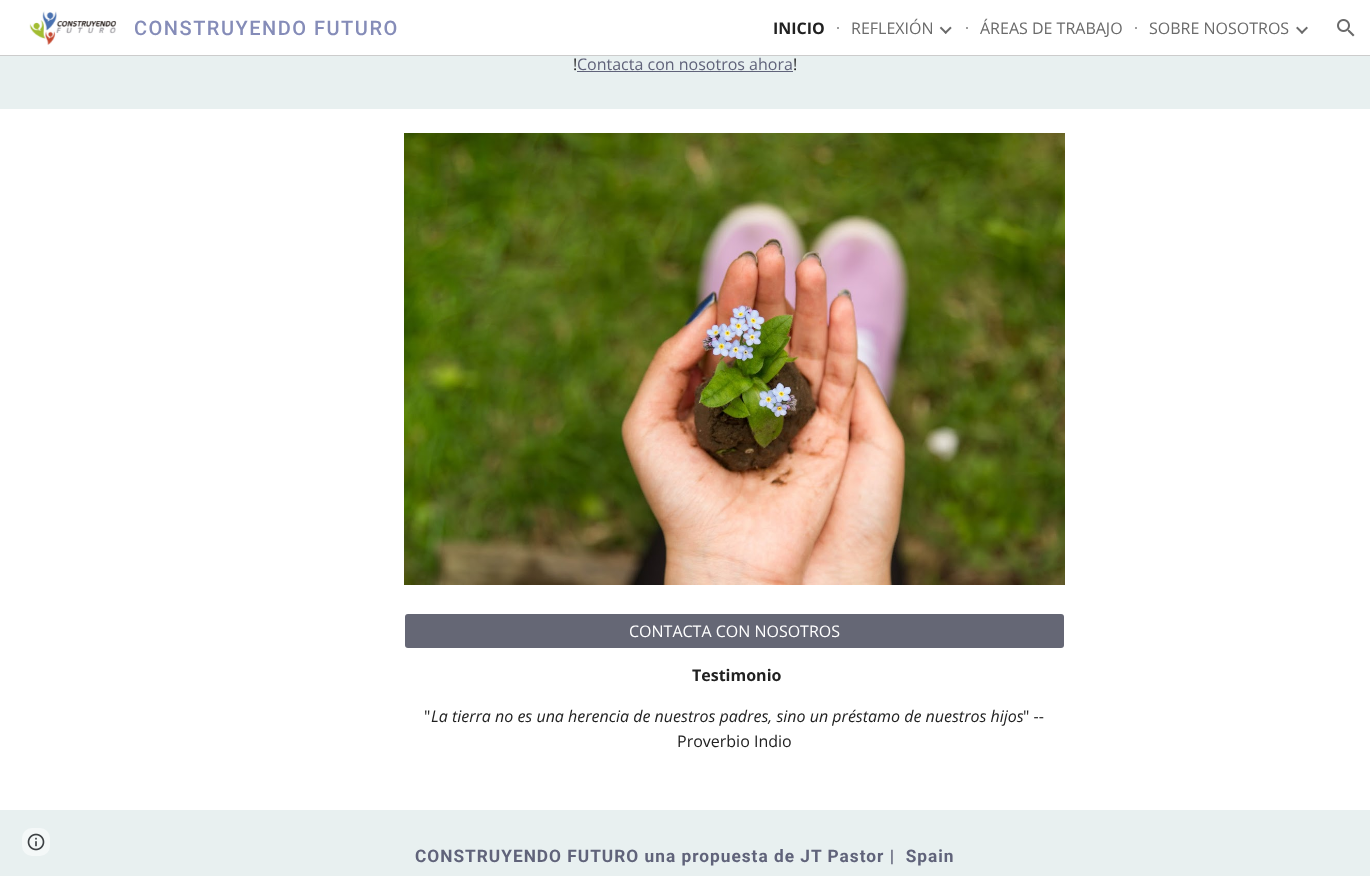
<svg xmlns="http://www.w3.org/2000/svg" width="1370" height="876">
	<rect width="100%" height="100%" fill="#FFFFFF" />
	<image x="29" y="11" width="88" height="34" href="assets/img1.png" />
	<text x="134" y="35" font-family="Roboto" font-size="20" font-weight="500" letter-spacing="1.5" fill="#858CB8">CONSTRUYENDO FUTURO</text>
	<text x="773" y="34" font-family="Open Sans" font-size="16" font-weight="700" fill="#212121">INICIO</text>
	<rect x="837" y="27" width="2" height="2" fill="#9E9E9E" />
	<text x="851" y="34" font-family="Open Sans" font-size="16" fill="#6A6A6A">REFLEXIÓN</text>
	<image x="939" y="26" width="13" height="8" href="assets/img2.png" />
	<rect x="966" y="27" width="2" height="2" fill="#9E9E9E" />
	<text x="980" y="34" font-family="Open Sans" font-size="16" fill="#6A6A6A">ÁREAS DE TRABAJO</text>
	<rect x="1135" y="27" width="2" height="2" fill="#9E9E9E" />
	<text x="1149" y="34" font-family="Open Sans" font-size="16" fill="#6A6A6A">SOBRE NOSOTROS</text>
	<image x="1296" y="26" width="12" height="8" href="assets/img3.png" />
	<image x="1337" y="19" width="18" height="18" href="assets/img4.png" />
	<rect x="0" y="55" width="1370" height="1" fill="#CCCCCC" />
	<rect x="0" y="56" width="1370" height="53" fill="#E8F0F0" />
	<text x="573" y="70" font-family="Open Sans" font-size="16" fill="#212121">!</text>
	<text x="577" y="70" font-family="Open Sans" font-size="16" fill="#60637A">Contacta con nosotros ahora</text>
	<rect x="577" y="71" width="216" height="1" fill="#60637A" />
	<text x="793" y="70" font-family="Open Sans" font-size="16" fill="#212121">!</text>
	<image x="404" y="133" width="661" height="452" href="assets/img5.png" />
	<rect x="405" y="614" width="659" height="34" rx="3" fill="#656775" />
	<text x="629" y="637" font-family="Open Sans" font-size="16" fill="#FFFFFF">CONTACTA CON NOSOTROS</text>
	<text x="692" y="681" font-family="Open Sans" font-size="16" font-weight="700" fill="#212121">Testimonio</text>
	<text x="424" y="722" font-family="Open Sans" font-size="16" fill="#212121">"</text>
	<text x="431" y="722" font-family="Open Sans" font-size="16" font-style="italic" fill="#212121">La tierra no es una herencia de nuestros padres, sino un préstamo de nuestros hijos</text>
	<g font-family="Open Sans" font-size="16" fill="#212121">
		<text x="1023" y="722">" --</text>
		<text x="677" y="747">Proverbio Indio</text>
	</g>
	<rect x="0" y="810" width="1370" height="66" fill="#E8F0F0" />
	<rect x="22" y="828" width="28" height="28" rx="10" fill="#F4F8F8" />
	<image x="27" y="833" width="18" height="18" href="assets/img6.png" />
	<text x="415" y="862" font-family="Roboto" font-size="17.3" font-weight="700" letter-spacing="1" fill="#60637A" xml:space="preserve">CONSTRUYENDO FUTURO una propuesta de JT Pastor |  Spain</text>
</svg>
